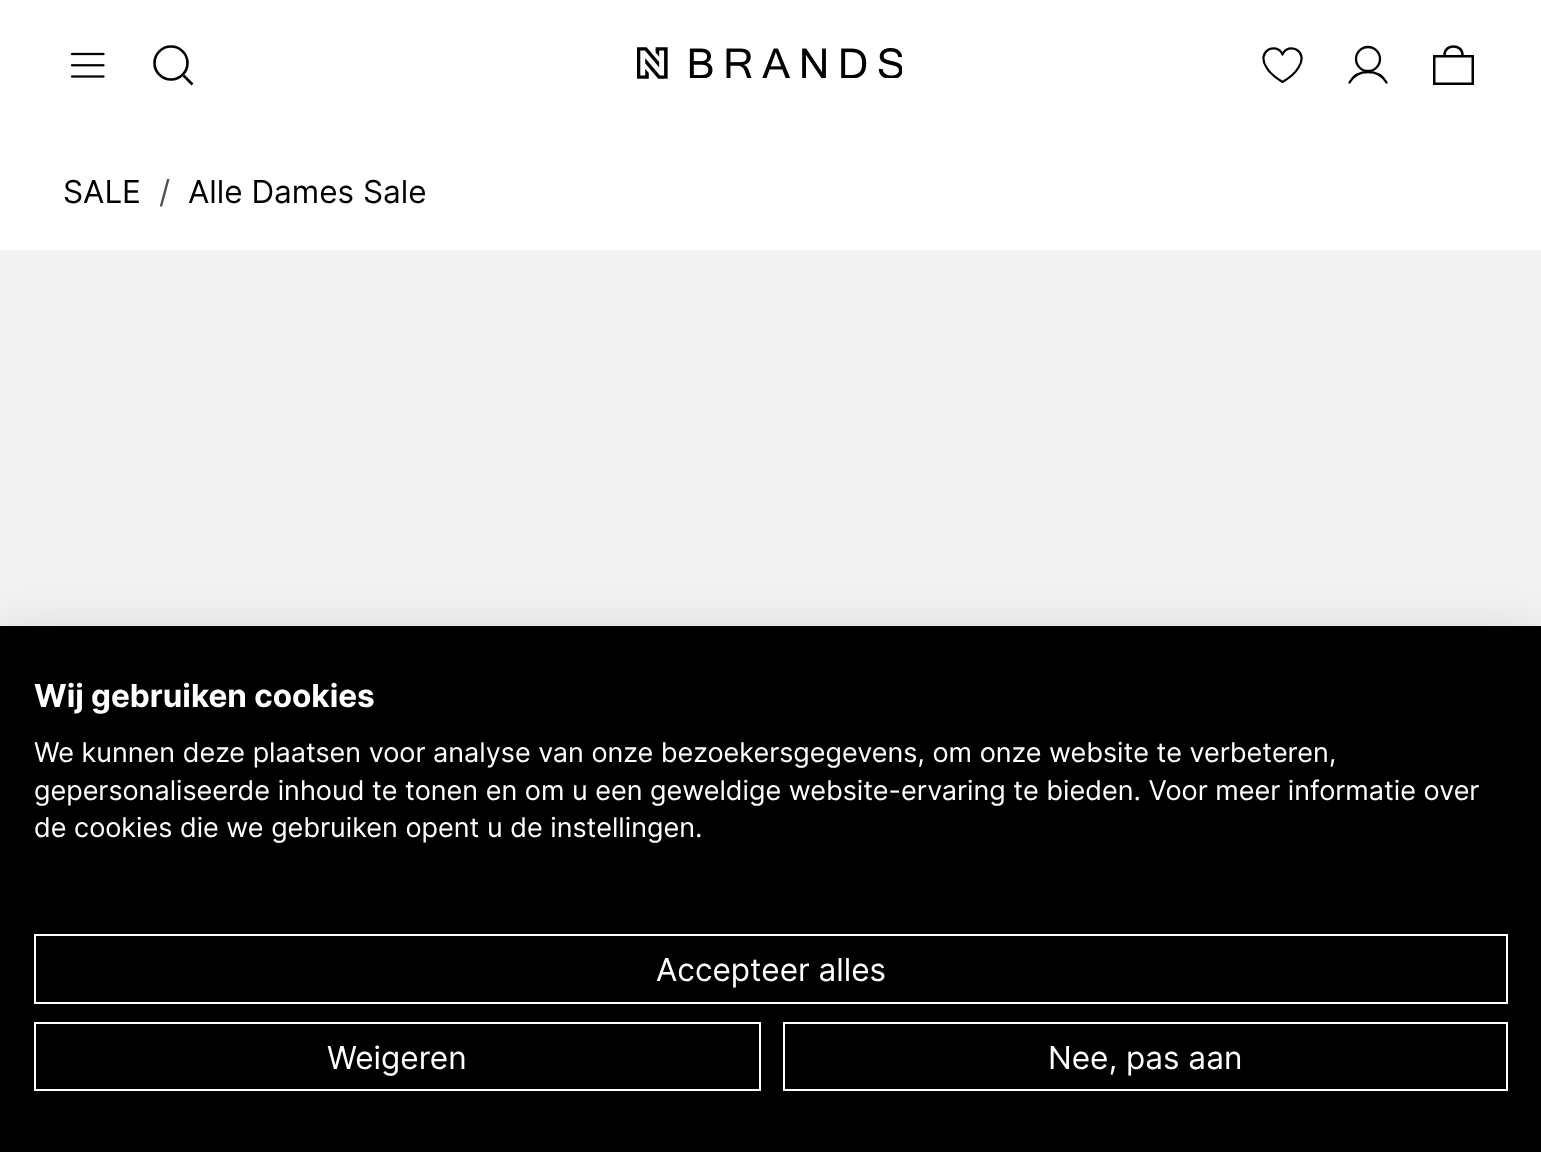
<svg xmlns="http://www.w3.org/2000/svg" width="1541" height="1152">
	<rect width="100%" height="100%" fill="#FFFFFF" />
	<image x="70" y="52" width="35" height="26" href="assets/img1.png" />
	<circle cx="171" cy="63" r="16.5" fill="none" stroke="#000000" stroke-width="2.6" />
	<path d="M183.5 75.5L192.5 84.5" fill="none" stroke="#000000" stroke-width="2.6" stroke-linejoin="round" />
	<image x="637" y="47" width="265" height="32" href="assets/img2.png" />
	<path d="M1282.5 82C1276.5 78.5 1270 73.5 1266.5 67.5C1255.5 50.5 1277 41.5 1282.5 54.5C1288 41.5 1309.5 50.5 1298.5 67.5C1295 73.5 1288.5 78.5 1282.5 82Z" fill="none" stroke="#000000" stroke-width="2.2" stroke-linecap="round" stroke-linejoin="round" />
	<circle cx="1368" cy="59" r="12" fill="none" stroke="#000000" stroke-width="2.3" />
	<path d="M1349.5 82.5C1357.5 68.5 1378.5 68.5 1386.5 82.5" fill="none" stroke="#000000" stroke-width="2.3" stroke-linecap="round" stroke-linejoin="round" />
	<rect x="1434.25" y="56.25" width="38.5" height="27.5" fill="none" stroke="#000000" stroke-width="2.5" />
	<path d="M1444.5 55C1444.5 43.5 1462.5 43.5 1462.5 55" fill="none" stroke="#000000" stroke-width="2.5" stroke-linecap="round" stroke-linejoin="round" />
	<text x="63" y="203" font-family="Inter" font-size="31.5" fill="#000000">SALE</text>
	<text x="159" y="203" font-family="Inter" font-size="31.5" fill="#4F4F4F">/</text>
	<text x="188" y="203" font-family="Inter" font-size="31.5" fill="#000000">Alle Dames Sale</text>
	<rect x="0" y="250" width="1541" height="376" fill="#F3F3F3" />
	<rect x="0" y="626" width="1541" height="526" fill="#000000" fill-opacity="0.1" filter="blur(27px)" />
	<rect x="0" y="626" width="1541" height="526" fill="#000000" />
	<text x="34" y="707" font-family="Inter" font-size="31.5" font-weight="700" fill="#FFFFFF">Wij gebruiken cookies</text>
	<g font-family="Inter" font-size="27" fill="#FFFFFF">
		<text x="34" y="762">We kunnen deze plaatsen voor analyse van onze bezoekersgegevens, om onze website te verbeteren,</text>
		<text x="34" y="800">gepersonaliseerde inhoud te tonen en om u een geweldige website-ervaring te bieden. Voor meer informatie over</text>
		<text x="34" y="837">de cookies die we gebruiken opent u de instellingen.</text>
	</g>
	<rect x="35" y="935" width="1472" height="68" fill="none" stroke="#FFFFFF" stroke-width="2" />
	<text x="656" y="981" font-family="Inter" font-size="31.5" fill="#FFFFFF">Accepteer alles</text>
	<rect x="35" y="1023" width="725" height="67" fill="none" stroke="#FFFFFF" stroke-width="2" />
	<text x="327" y="1069" font-family="Inter" font-size="31.5" fill="#FFFFFF">Weigeren</text>
	<rect x="784" y="1023" width="723" height="67" fill="none" stroke="#FFFFFF" stroke-width="2" />
	<text x="1048" y="1069" font-family="Inter" font-size="31.5" fill="#FFFFFF">Nee, pas aan</text>
</svg>
